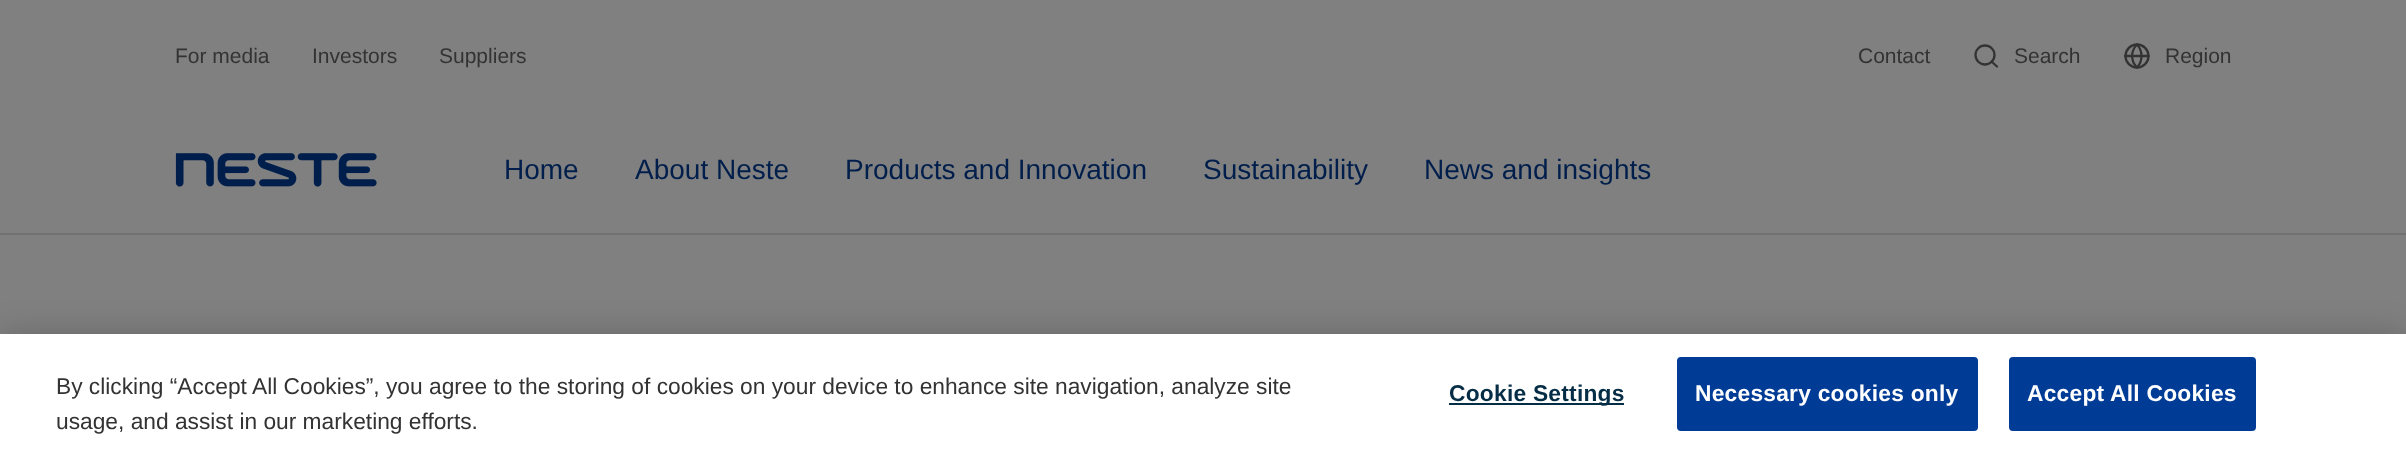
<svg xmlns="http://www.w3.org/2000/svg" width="2406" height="457">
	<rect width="100%" height="100%" fill="#808080" />
	<rect x="0" y="233" width="2406" height="2" fill="#707272" />
	<g font-family="Liberation Sans" font-size="21" fill="#333333">
		<text x="175" y="63">For media</text>
		<text x="312" y="63">Investors</text>
		<text x="439" y="63">Suppliers</text>
		<text x="1858" y="63">Contact</text>
	</g>
	<circle cx="1985" cy="55" r="9.5" fill="none" stroke="#333333" stroke-width="2.3" />
	<path d="M1997 66.5L1991.5 61.5" fill="none" stroke="#333333" stroke-width="2.3" stroke-linecap="round" stroke-linejoin="round" />
	<text x="2014" y="63" font-family="Liberation Sans" font-size="21" fill="#333333">Search</text>
	<circle cx="2137" cy="56" r="11.5" fill="none" stroke="#333333" stroke-width="2.3" />
	<path d="M2137 44.5C2130.5 51 2130.5 61 2137 67.5C2143 61 2143 51 2137 44.5M2125 56H2148.5" fill="none" stroke="#333333" stroke-width="2.3" stroke-linecap="round" stroke-linejoin="round" />
	<text x="2165" y="63" font-family="Liberation Sans" font-size="21" fill="#333333">Region</text>
	<image x="175" y="153" width="202" height="34" href="assets/img1.png" />
	<g font-family="Liberation Sans" font-size="28" fill="#001E4B">
		<text x="504" y="179">Home</text>
		<text x="635" y="179">About Neste</text>
		<text x="845" y="179">Products and Innovation</text>
		<text x="1203" y="179">Sustainability</text>
		<text x="1424" y="179">News and insights</text>
	</g>
	<rect x="0" y="334" width="2406" height="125" fill="#000000" fill-opacity="0.2" filter="blur(16px)" />
	<rect x="0" y="334" width="2406" height="123" fill="#FFFFFF" />
	<g font-family="Liberation Sans" font-size="22.75" fill="#333333">
		<text x="56" y="394">By clicking “Accept All Cookies”, you agree to the storing of cookies on your device to enhance site navigation, analyze site</text>
		<text x="56" y="429">usage, and assist in our marketing efforts.</text>
	</g>
	<rect x="1449" y="403" width="175" height="2" fill="#052D46" />
	<text x="1449" y="401" font-family="Liberation Sans" font-size="22.75" font-weight="700" letter-spacing="0.25" fill="#052D46">Cookie Settings</text>
	<rect x="1678" y="358" width="299" height="72" rx="3" fill="#003C96" stroke="#003C96" stroke-width="2" />
	<text x="1695" y="401" font-family="Liberation Sans" font-size="22.75" font-weight="700" letter-spacing="0.25" fill="#FFFFFF">Necessary cookies only</text>
	<rect x="2010" y="358" width="245" height="72" rx="3" fill="#003C96" stroke="#003C96" stroke-width="2" />
	<text x="2027" y="401" font-family="Liberation Sans" font-size="22.75" font-weight="700" letter-spacing="0.25" fill="#FFFFFF">Accept All Cookies</text>
</svg>
